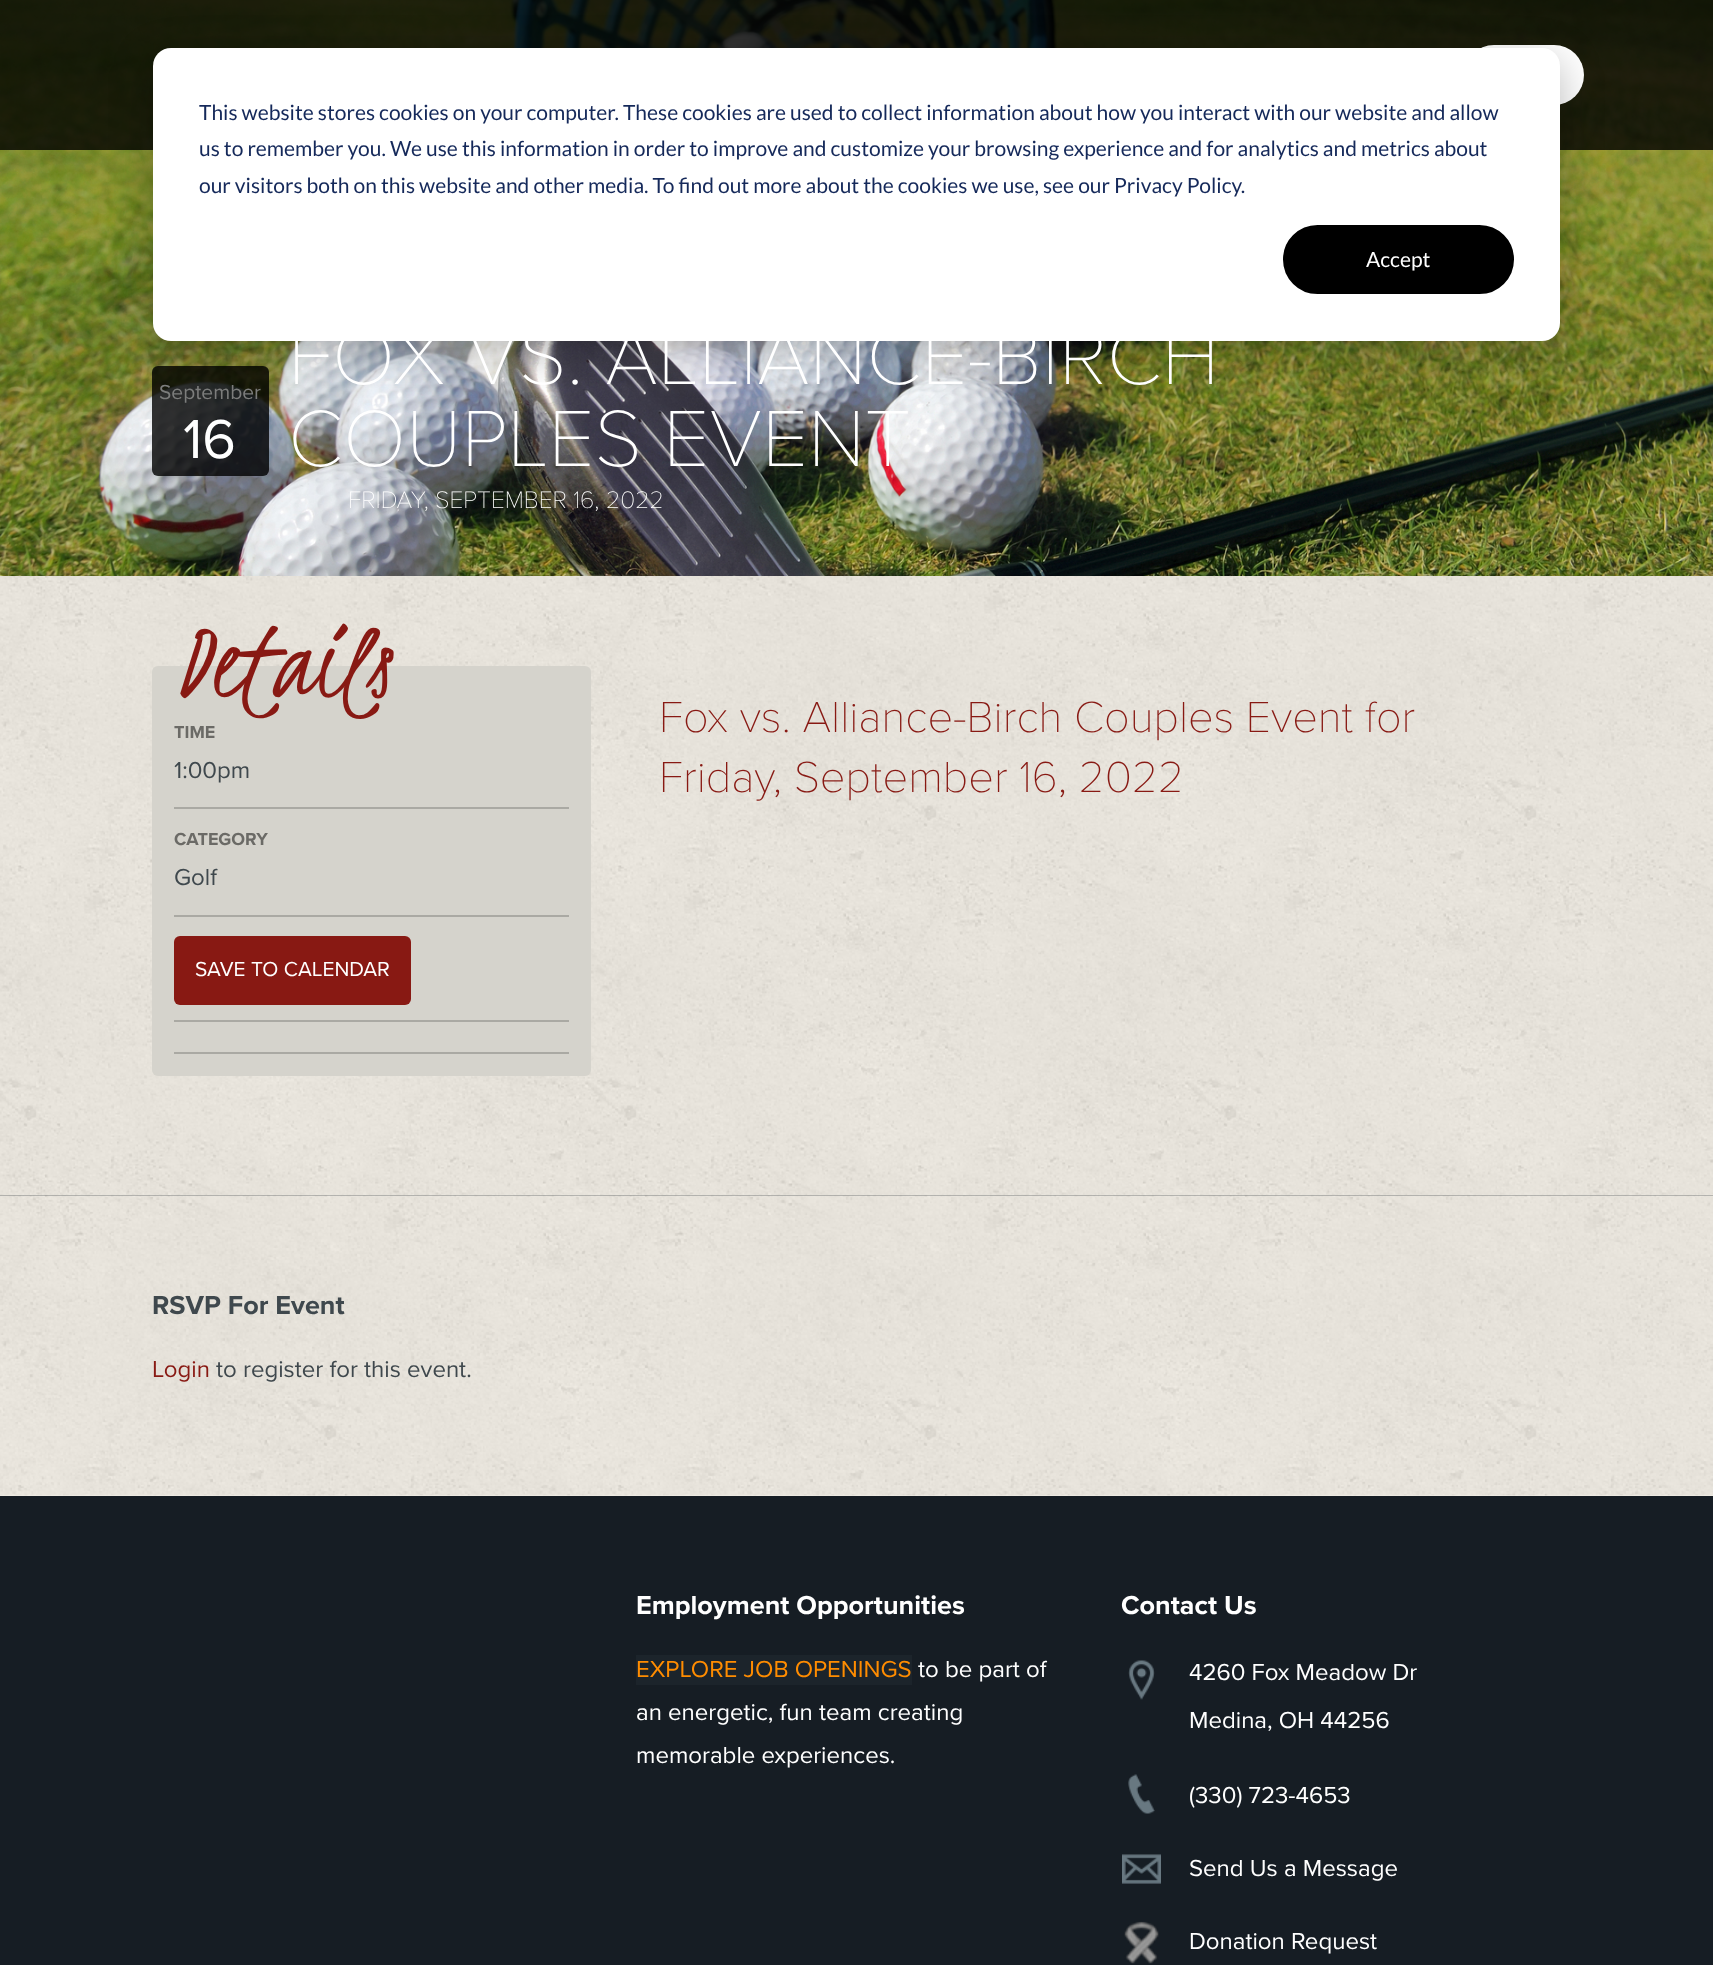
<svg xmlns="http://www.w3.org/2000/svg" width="1713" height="1965">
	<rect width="100%" height="100%" fill="#FFFFFF" />
	<image x="0" y="1195" width="1713" height="1" href="assets/img1.png" />
	<image x="0" y="0" width="1713" height="576" href="assets/img2.png" />
	<rect x="0" y="0" width="1713" height="150" fill="#000000" fill-opacity="0.8" />
	<rect x="1464" y="45" width="120" height="60" rx="30" fill="#FFFFFF" />
	<rect x="152" y="366" width="117" height="110" rx="6" fill="#000000" fill-opacity="0.8" />
	<rect x="153" y="60" width="1407" height="293" rx="18" fill="#000000" fill-opacity="0.28" filter="blur(21px)" />
	<rect x="153" y="48" width="1407" height="293" rx="18" fill="#FFFFFF" />
	<g font-family="Lato" font-size="21" fill="#15295A">
		<text x="199" y="120">This website stores cookies on your computer. These cookies are used to collect information about how you interact with our website and allow</text>
		<text x="199" y="156">us to remember you. We use this information in order to improve and customize your browsing experience and for analytics and metrics about</text>
		<text x="199" y="193">our visitors both on this website and other media. To find out more about the cookies we use, see our Privacy Policy.</text>
	</g>
	<rect x="1284" y="226" width="229" height="67" rx="33.5" fill="#000000" stroke="#000000" stroke-width="2" />
	<text x="1366" y="267" font-family="Lato" font-size="21" fill="#FFFFFF">Accept</text>
	<g font-family="Proxima Nova" font-size="82.5" font-weight="100" fill="#FFFFFF">
		<text x="288" y="384">FOX VS. ALLIANCE-BIRCH</text>
		<text x="288" y="466">COUPLES EVENT</text>
	</g>
	<text x="348" y="508" font-family="Proxima Nova" font-size="24.75" font-weight="100" fill="#FFFFFF">FRIDAY, SEPTEMBER 16, 2022</text>
	<image x="0" y="576" width="1713" height="620" href="assets/img3.png" />
	<text x="159" y="399" font-family="Proxima Nova" font-size="21" fill="#7C7D7C">September</text>
	<text x="183" y="458" font-family="Proxima Nova" font-size="57" fill="#FFFFFF">16</text>
	<rect x="152" y="666" width="439" height="410" rx="6" fill="#D5D3CC" />
	<text x="174" y="695" font-family="Kristi" font-size="120" fill="#881913">Details</text>
	<rect x="174" y="807" width="395" height="2" fill="#AAA9A3" />
	<text x="174" y="738" font-family="Proxima Nova" font-size="18" font-weight="700" fill="#6B6A66">TIME</text>
	<text x="174" y="778" font-family="Proxima Nova" font-size="24" fill="#3F484D">1:00pm</text>
	<rect x="174" y="915" width="395" height="2" fill="#AAA9A3" />
	<text x="174" y="845" font-family="Proxima Nova" font-size="18" font-weight="700" fill="#6B6A66">CATEGORY</text>
	<text x="174" y="885" font-family="Proxima Nova" font-size="24" fill="#3F484D">Golf</text>
	<rect x="174" y="1020" width="395" height="2" fill="#AAA9A3" />
	<rect x="174" y="936" width="237" height="69" rx="6" fill="#881913" />
	<text x="195" y="976" font-family="Proxima Nova" font-size="21" fill="#FFFFFF">SAVE TO CALENDAR</text>
	<rect x="174" y="1052" width="395" height="2" fill="#AAA9A3" />
	<g font-family="Proxima Nova" font-size="45" font-weight="100" fill="#881913">
		<text x="659" y="732">Fox vs. Alliance-Birch Couples Event for</text>
		<text x="659" y="792">Friday, September 16, 2022</text>
	</g>
	<rect x="0" y="1495" width="1713" height="1" fill="#F4F0E8" />
	<image x="0" y="1195" width="1713" height="301" href="assets/img4.png" />
	<text x="152" y="1314" font-family="Proxima Nova" font-size="27" font-weight="700" fill="#3F484D">RSVP For Event</text>
	<text x="152" y="1377" font-family="Proxima Nova" font-size="24" fill="#881913">Login</text>
	<text x="216" y="1377" font-family="Proxima Nova" font-size="24" fill="#3F484D">to register for this event.</text>
	<rect x="0" y="1496" width="1713" height="469" fill="#161D24" />
	<text x="636" y="1614" font-family="Proxima Nova" font-size="27" font-weight="700" fill="#FFFFFF">Employment Opportunities</text>
	<rect x="636" y="1655" width="276" height="30" fill="#1C242B" />
	<text x="636" y="1677" font-family="Proxima Nova" font-size="24" fill="#FF8C00">EXPLORE JOB OPENINGS</text>
	<g font-family="Proxima Nova" font-size="24" fill="#FFFFFF">
		<text x="918" y="1677">to be part of</text>
		<text x="636" y="1720">an energetic, fun team creating</text>
		<text x="636" y="1763">memorable experiences.</text>
	</g>
	<text x="1121" y="1614" font-family="Proxima Nova" font-size="27" font-weight="700" fill="#FFFFFF">Contact Us</text>
	<image x="1128" y="1660" width="27" height="40" href="assets/img5.png" />
	<g font-family="Proxima Nova" font-size="24" fill="#FFFFFF">
		<text x="1189" y="1680">4260 Fox Meadow Dr</text>
		<text x="1189" y="1728">Medina, OH 44256</text>
	</g>
	<image x="1128" y="1774" width="27" height="40" href="assets/img6.png" />
	<text x="1189" y="1803" font-family="Proxima Nova" font-size="24" fill="#FFFFFF">(330) 723-4653</text>
	<image x="1122" y="1854" width="39" height="30" href="assets/img7.png" />
	<text x="1189" y="1876" font-family="Proxima Nova" font-size="24" fill="#FFFFFF">Send Us a Message</text>
	<image x="1124" y="1921" width="35" height="43" href="assets/img8.png" />
	<text x="1189" y="1949" font-family="Proxima Nova" font-size="24" fill="#FFFFFF">Donation Request</text>
</svg>
